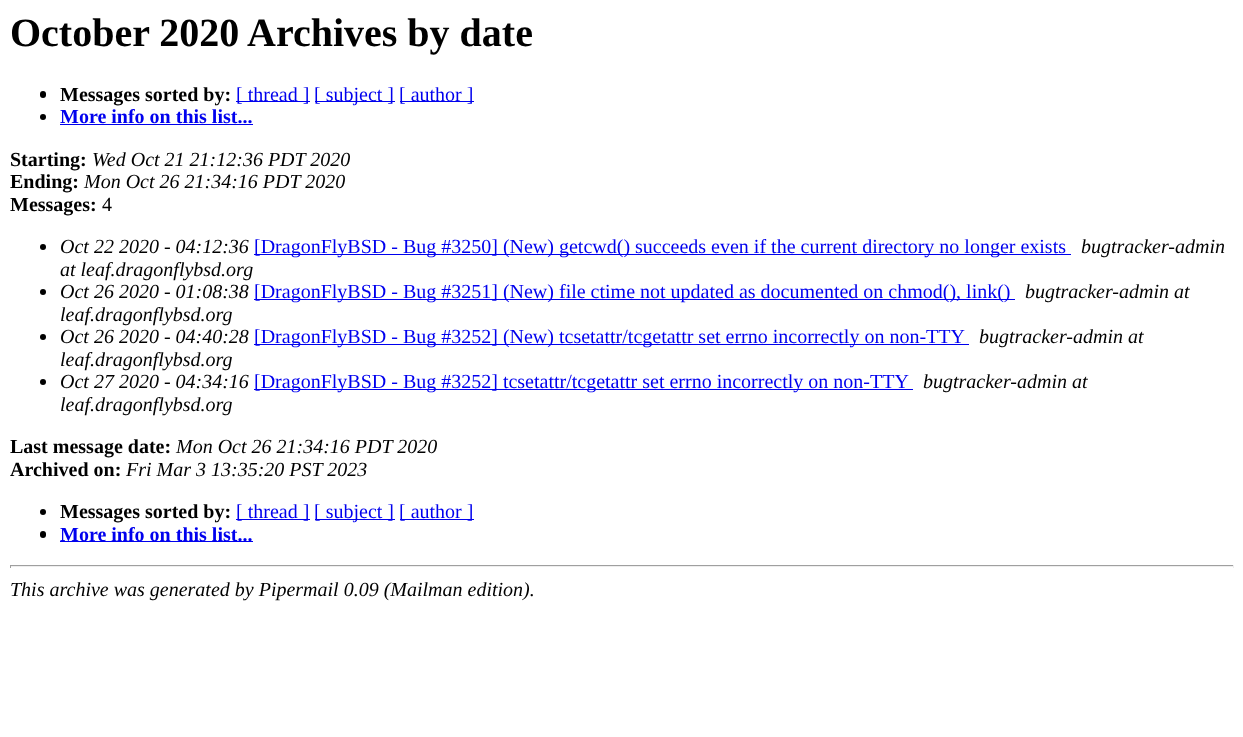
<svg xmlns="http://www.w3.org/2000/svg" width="1243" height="737">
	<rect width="100%" height="100%" fill="#FFFFFF" />
	<text x="10" y="46" font-family="Liberation Serif" font-size="40" font-weight="700" fill="#000000">October 2020 Archives by date</text>
	<rect x="40" y="91" width="6" height="7" rx="3" fill="#000000" />
	<text x="60" y="101" font-family="Liberation Serif" font-size="20" font-weight="700" fill="#000000">Messages sorted by:</text>
	<rect x="236" y="101" width="74" height="1" fill="#0000EE" />
	<text x="236" y="101" font-family="Liberation Serif" font-size="20" fill="#0000EE">[ thread ]</text>
	<rect x="315" y="101" width="80" height="1" fill="#0000EE" />
	<text x="314" y="101" font-family="Liberation Serif" font-size="20" fill="#0000EE">[ subject ]</text>
	<rect x="400" y="101" width="74" height="1" fill="#0000EE" />
	<text x="399" y="101" font-family="Liberation Serif" font-size="20" fill="#0000EE">[ author ]</text>
	<circle cx="43" cy="117" r="3" fill="#000000" />
	<text x="60" y="123" font-family="Liberation Serif" font-size="20" font-weight="700" fill="#0000EE">More info on this list...</text>
	<rect x="60" y="124" width="193" height="1" fill="#0000EE" />
	<text x="10" y="166" font-family="Liberation Serif" font-size="20" font-weight="700" fill="#000000">Starting:</text>
	<text x="92" y="166" font-family="Liberation Serif" font-size="20" font-style="italic" fill="#000000">Wed Oct 21 21:12:36 PDT 2020</text>
	<text x="10" y="188" font-family="Liberation Serif" font-size="20" font-weight="700" fill="#000000">Ending:</text>
	<text x="84" y="188" font-family="Liberation Serif" font-size="20" font-style="italic" fill="#000000">Mon Oct 26 21:34:16 PDT 2020</text>
	<text x="10" y="211" font-family="Liberation Serif" font-size="20" font-weight="700" fill="#000000">Messages:</text>
	<text x="102" y="211" font-family="Liberation Serif" font-size="20" fill="#000000">4</text>
	<circle cx="43" cy="247" r="3" fill="#000000" />
	<text x="60" y="253" font-family="Liberation Serif" font-size="20" font-style="italic" fill="#000000">Oct 22 2020 - 04:12:36</text>
	<rect x="254" y="254" width="817" height="1" fill="#0000EE" />
	<text x="254" y="253" font-family="Liberation Serif" font-size="20" fill="#0000EE">[DragonFlyBSD - Bug #3250] (New) getcwd() succeeds even if the current directory no longer exists</text>
	<g font-family="Liberation Serif" font-size="20" font-style="italic" fill="#000000">
		<text x="1081" y="253">bugtracker-admin</text>
		<text x="60" y="276">at leaf.dragonflybsd.org</text>
	</g>
	<circle cx="43" cy="292" r="3" fill="#000000" />
	<text x="60" y="298" font-family="Liberation Serif" font-size="20" font-style="italic" fill="#000000">Oct 26 2020 - 01:08:38</text>
	<rect x="254" y="299" width="761" height="1" fill="#0000EE" />
	<text x="254" y="298" font-family="Liberation Serif" font-size="20" fill="#0000EE">[DragonFlyBSD - Bug #3251] (New) file ctime not updated as documented on chmod(), link()</text>
	<g font-family="Liberation Serif" font-size="20" font-style="italic" fill="#000000">
		<text x="1025" y="298">bugtracker-admin at</text>
		<text x="60" y="321">leaf.dragonflybsd.org</text>
	</g>
	<circle cx="43" cy="337" r="3" fill="#000000" />
	<text x="60" y="343" font-family="Liberation Serif" font-size="20" font-style="italic" fill="#000000">Oct 26 2020 - 04:40:28</text>
	<rect x="254" y="344" width="715" height="1" fill="#0000EE" />
	<text x="254" y="343" font-family="Liberation Serif" font-size="20" fill="#0000EE">[DragonFlyBSD - Bug #3252] (New) tcsetattr/tcgetattr set errno incorrectly on non-TTY</text>
	<g font-family="Liberation Serif" font-size="20" font-style="italic" fill="#000000">
		<text x="979" y="343">bugtracker-admin at</text>
		<text x="60" y="366">leaf.dragonflybsd.org</text>
	</g>
	<circle cx="43" cy="382" r="3" fill="#000000" />
	<text x="60" y="388" font-family="Liberation Serif" font-size="20" font-style="italic" fill="#000000">Oct 27 2020 - 04:34:16</text>
	<rect x="254" y="389" width="659" height="1" fill="#0000EE" />
	<text x="254" y="388" font-family="Liberation Serif" font-size="20" fill="#0000EE">[DragonFlyBSD - Bug #3252] tcsetattr/tcgetattr set errno incorrectly on non-TTY</text>
	<g font-family="Liberation Serif" font-size="20" font-style="italic" fill="#000000">
		<text x="923" y="388">bugtracker-admin at</text>
		<text x="60" y="411">leaf.dragonflybsd.org</text>
	</g>
	<text x="10" y="453" font-family="Liberation Serif" font-size="20" font-weight="700" fill="#000000">Last message date:</text>
	<text x="176" y="453" font-family="Liberation Serif" font-size="20" font-style="italic" fill="#000000">Mon Oct 26 21:34:16 PDT 2020</text>
	<text x="10" y="476" font-family="Liberation Serif" font-size="20" font-weight="700" fill="#000000">Archived on:</text>
	<text x="126" y="476" font-family="Liberation Serif" font-size="20" font-style="italic" fill="#000000">Fri Mar 3 13:35:20 PST 2023</text>
	<circle cx="43" cy="512" r="3" fill="#000000" />
	<text x="60" y="518" font-family="Liberation Serif" font-size="20" font-weight="700" fill="#000000">Messages sorted by:</text>
	<rect x="236" y="519" width="74" height="1" fill="#0000EE" />
	<text x="236" y="518" font-family="Liberation Serif" font-size="20" fill="#0000EE">[ thread ]</text>
	<rect x="315" y="519" width="80" height="1" fill="#0000EE" />
	<text x="314" y="518" font-family="Liberation Serif" font-size="20" fill="#0000EE">[ subject ]</text>
	<rect x="400" y="519" width="74" height="1" fill="#0000EE" />
	<text x="399" y="518" font-family="Liberation Serif" font-size="20" fill="#0000EE">[ author ]</text>
	<rect x="40" y="531" width="6" height="7" rx="3" fill="#000000" />
	<rect x="60" y="541" width="193" height="1" fill="#0000EE" />
	<text x="60" y="541" font-family="Liberation Serif" font-size="20" font-weight="700" fill="#0000EE">More info on this list...</text>
	<rect x="10" y="565" width="1224" height="1" fill="#9F9F9F" />
	<rect x="1233" y="565" width="1" height="3" fill="#EEEEEE" />
	<rect x="10" y="566" width="1224" height="1" fill="#EEEEEE" />
	<rect x="10" y="565" width="1" height="3" fill="#9F9F9F" />
	<text x="10" y="596" font-family="Liberation Serif" font-size="20" font-style="italic" fill="#000000">This archive was generated by Pipermail 0.09 (Mailman edition).</text>
</svg>
